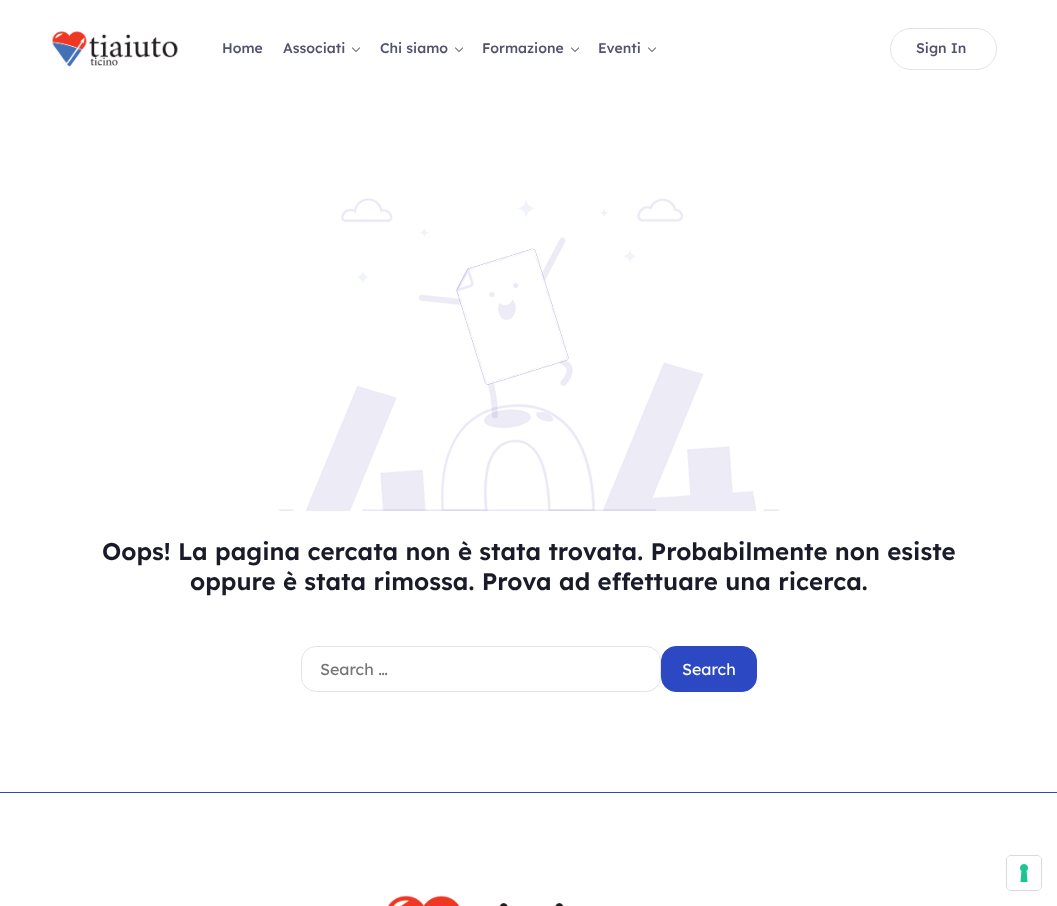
<svg xmlns="http://www.w3.org/2000/svg" width="1057" height="906">
	<rect width="100%" height="100%" fill="#FFFFFF" />
	<image x="52" y="31" width="126" height="36" href="assets/img1.png" />
	<g font-family="Lexend" font-size="14" font-weight="500" fill="#51526E">
		<text x="222" y="53">Home</text>
		<text x="283" y="53">Associati</text>
	</g>
	<image x="352" y="47" width="8" height="5" href="assets/img2.png" />
	<text x="380" y="53" font-family="Lexend" font-size="14" font-weight="500" fill="#51526E">Chi siamo</text>
	<image x="455" y="47" width="8" height="5" href="assets/img2.png" />
	<text x="482" y="53" font-family="Lexend" font-size="14" font-weight="500" fill="#51526E">Formazione</text>
	<image x="571" y="47" width="8" height="5" href="assets/img2.png" />
	<text x="598" y="53" font-family="Lexend" font-size="14" font-weight="500" fill="#51526E">Eventi</text>
	<image x="648" y="47" width="8" height="5" href="assets/img2.png" />
	<rect x="890.5" y="28.5" width="106" height="41" rx="20.5" fill="none" stroke="#E1E4EC" />
	<text x="916" y="53" font-family="Lexend" font-size="14" font-weight="500" fill="#51526E">Sign In</text>
	<image x="279" y="198" width="500" height="313" href="assets/img3.png" />
	<g font-family="Lexend" font-size="24" font-weight="600" fill="#1A1B29">
		<text x="102" y="560">Oops! La pagina cercata non è stata trovata. Probabilmente non esiste</text>
		<text x="190" y="590">oppure è stata rimossa. Prova ad effettuare una ricerca.</text>
	</g>
	<rect x="301.5" y="646.5" width="359" height="45" rx="14.5" fill="none" stroke="#E1E4EC" />
	<text x="320" y="675" font-family="Lexend" font-size="16" fill="#757575">Search …</text>
	<rect x="661.5" y="646.5" width="95" height="45" rx="14.5" fill="#2D48C3" stroke="#2D48C3" />
	<text x="682" y="675" font-family="Lexend" font-size="16" fill="#FFFFFF">Search</text>
	<rect x="0" y="792" width="1057" height="1" fill="#2D48C3" />
	<image x="388" y="895" width="176" height="11" href="assets/img4.png" />
	<rect x="1006.5" y="855.5" width="35" height="35" rx="4.5" fill="none" stroke="#D9D9D9" />
	<rect x="1007" y="856" width="34" height="34" rx="4" fill="#FFFFFF" />
	<image x="1020" y="864" width="8" height="18" href="assets/img5.png" />
</svg>
